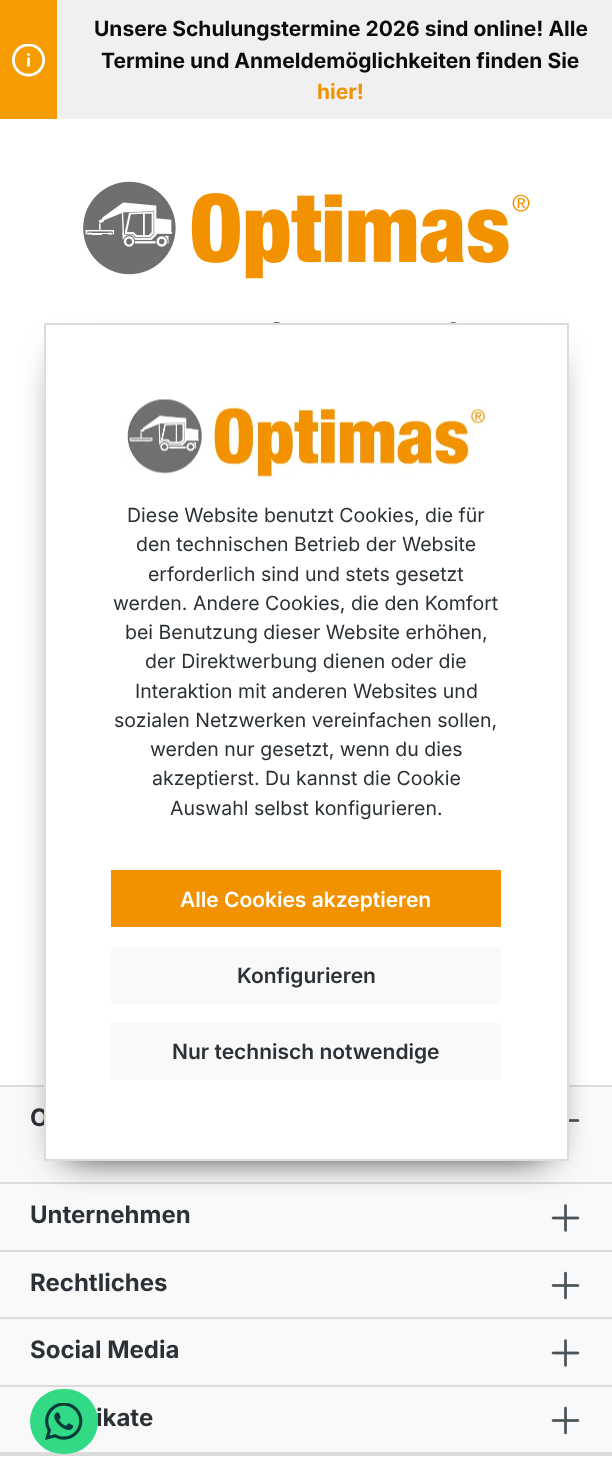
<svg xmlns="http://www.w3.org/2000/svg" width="612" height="1483">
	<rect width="100%" height="100%" fill="#FFFFFF" />
	<rect x="0" y="0" width="57" height="119" fill="#F59C00" />
	<image x="12" y="44" width="33" height="33" href="assets/img1.png" />
	<rect x="57" y="0" width="555" height="119" fill="#F0F0F0" />
	<g font-family="Inter" font-size="21" font-weight="700" fill="#0B0B0B">
		<text x="94" y="36">Unsere Schulungstermine 2026 sind online! Alle</text>
		<text x="101" y="68">Termine und Anmeldemöglichkeiten finden Sie</text>
	</g>
	<text x="317" y="99" font-family="Inter" font-size="21" font-weight="700" fill="#F39200">hier!</text>
	<image x="83" y="181" width="447" height="98" href="assets/img2.png" />
	<image x="273" y="322" width="8" height="1" href="assets/img3.png" />
	<image x="450" y="322" width="7" height="1" href="assets/img4.png" />
	<rect x="0" y="1087" width="612" height="365" fill="#F9F9F9" />
	<rect x="0" y="1085" width="612" height="2" fill="#DCDCDC" />
	<rect x="0" y="1182" width="612" height="2" fill="#DCDCDC" />
	<image x="569" y="1119" width="11" height="3" href="assets/img6.png" />
	<image x="551" y="1204" width="29" height="28" href="assets/img7.png" />
	<rect x="66" y="360" width="480" height="794" fill="#000000" filter="blur(19px)" />
	<text x="30" y="1126" font-family="Inter" font-size="24" font-weight="700" fill="#2B3136">O</text>
	<rect x="45" y="324" width="523" height="836" fill="#FFFFFF" stroke="#DCDCDC" stroke-width="2" />
	<image x="127" y="399" width="359" height="78" href="assets/img5.png" />
	<g font-family="Inter" font-size="19.5" fill="#2B3136">
		<text x="127" y="522">Diese Website benutzt Cookies, die für</text>
		<text x="136" y="551">den technischen Betrieb der Website</text>
		<text x="148" y="581">erforderlich sind und stets gesetzt</text>
		<text x="113" y="610">werden. Andere Cookies, die den Komfort</text>
		<text x="125" y="639">bei Benutzung dieser Website erhöhen,</text>
		<text x="145" y="668">der Direktwerbung dienen oder die</text>
		<text x="135" y="698">Interaktion mit anderen Websites und</text>
		<text x="114" y="727">sozialen Netzwerken vereinfachen sollen,</text>
		<text x="150" y="756">werden nur gesetzt, wenn du dies</text>
		<text x="152" y="785">akzeptierst. Du kannst die Cookie</text>
		<text x="170" y="815">Auswahl selbst konfigurieren.</text>
	</g>
	<rect x="111" y="870" width="390" height="57" fill="#F39200" />
	<text x="180" y="907" font-family="Inter" font-size="21" font-weight="600" fill="#FFFFFF">Alle Cookies akzeptieren</text>
	<rect x="111" y="947" width="390" height="57" fill="#F9F9F9" />
	<text x="237" y="983" font-family="Inter" font-size="21" font-weight="600" fill="#2B3136">Konfigurieren</text>
	<rect x="111" y="1023" width="390" height="57" fill="#F9F9F9" />
	<text x="172" y="1059" font-family="Inter" font-size="21" font-weight="600" fill="#2B3136">Nur technisch notwendige</text>
	<rect x="0" y="1250" width="612" height="2" fill="#DCDCDC" />
	<text x="30" y="1223" font-family="Inter" font-size="24" font-weight="700" fill="#2B3136">Unternehmen</text>
	<rect x="0" y="1317" width="612" height="2" fill="#DCDCDC" />
	<text x="30" y="1291" font-family="Inter" font-size="24" font-weight="700" fill="#2B3136">Rechtliches</text>
	<image x="551" y="1271" width="29" height="29" href="assets/img8.png" />
	<rect x="0" y="1385" width="612" height="2" fill="#DCDCDC" />
	<text x="30" y="1358" font-family="Inter" font-size="24" font-weight="700" fill="#2B3136">Social Media</text>
	<image x="551" y="1339" width="29" height="28" href="assets/img7.png" />
	<text x="96" y="1426" font-family="Inter" font-size="24" font-weight="700" fill="#2B3136">ikate</text>
	<image x="551" y="1406" width="29" height="29" href="assets/img8.png" />
	<rect x="0" y="1452" width="612" height="4" fill="#DCDCDC" />
	<rect x="30" y="1389" width="68" height="65" rx="32.5" fill="#32DA85" />
	<image x="45" y="1403" width="38" height="37" href="assets/img9.png" />
</svg>
